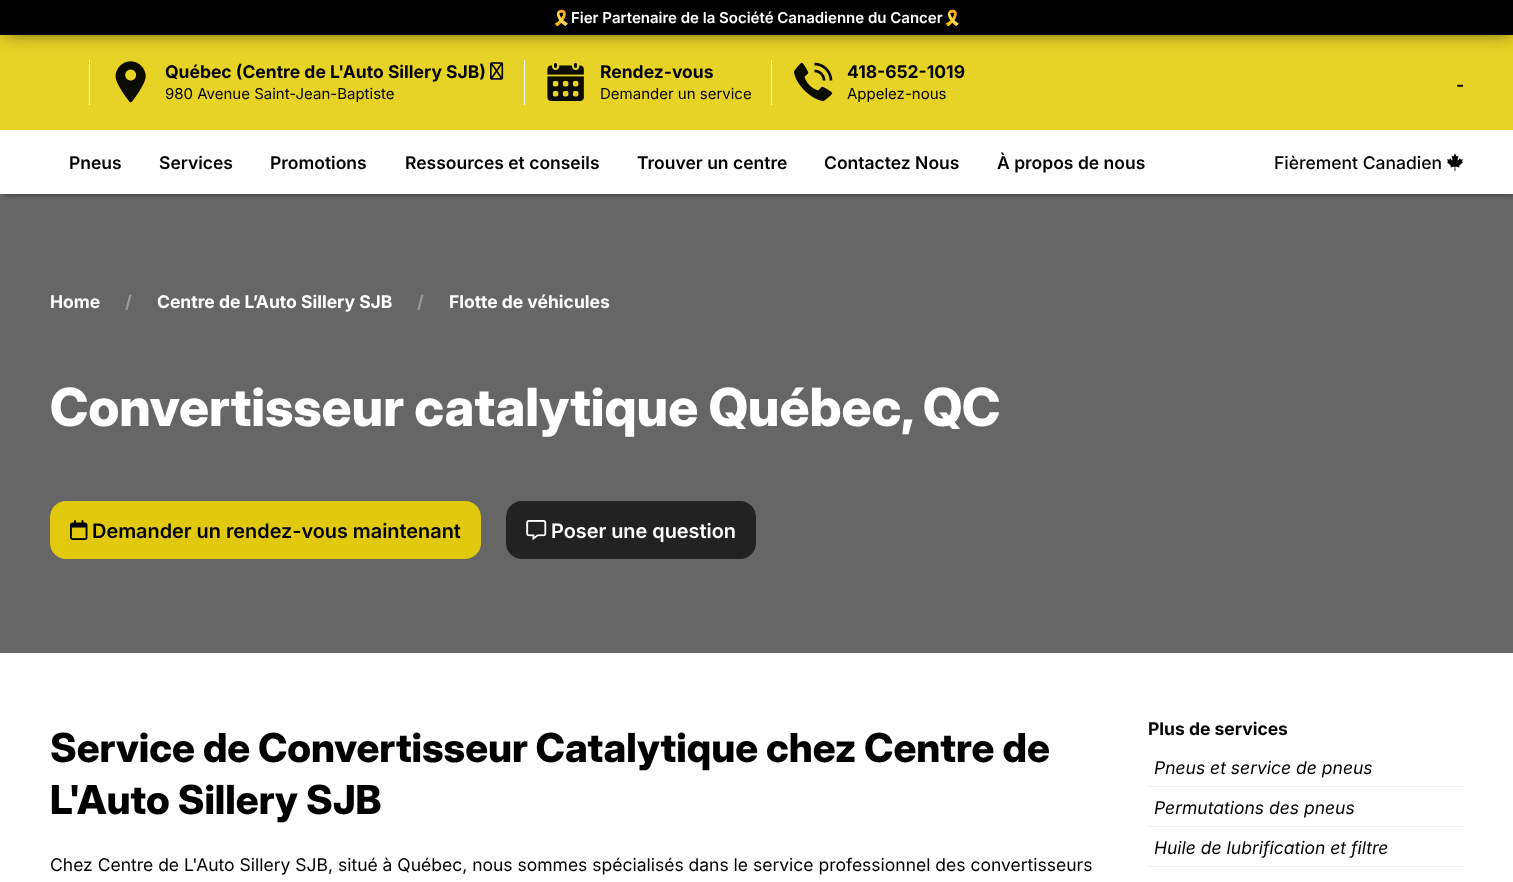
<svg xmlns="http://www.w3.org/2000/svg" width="1513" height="882">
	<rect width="100%" height="100%" fill="#FFFFFF" />
	<rect x="5" y="8" width="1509" height="188" fill="#000000" fill-opacity="0.31" filter="blur(2px)" />
	<rect x="1" y="130" width="1512" height="64" fill="#FFFFFF" />
	<rect x="0" y="35" width="1513" height="95" fill="#E7D326" />
	<rect x="89" y="60" width="1" height="45" fill="#FFFFFF" />
	<rect x="524" y="60" width="1" height="45" fill="#FFFFFF" />
	<rect x="771" y="60" width="1" height="45" fill="#FFFFFF" />
	<rect x="4" y="1" width="1509" height="30" fill="#000000" fill-opacity="0.74" filter="blur(9.5px)" />
	<rect x="0" y="0" width="1513" height="35" fill="#000000" />
	<text x="552" y="23" font-family="Noto Color Emoji" font-size="15" font-weight="700" fill="#FFFFFF">🎗️</text>
	<text x="571" y="23" font-family="Inter" font-size="15" font-weight="600" fill="#FFFFFF">Fier Partenaire de la Société Canadienne du Cancer</text>
	<text x="943" y="23" font-family="Noto Color Emoji" font-size="15" font-weight="700" fill="#FFFFFF">🎗️</text>
	<image x="115" y="61" width="31" height="42" href="assets/img1.png" />
	<text x="165" y="78" font-family="Inter" font-size="17.5" font-weight="700" fill="#000000">Québec (Centre de L'Auto Sillery SJB)</text>
	<image x="490" y="62" width="14" height="18" href="assets/img2.png" />
	<text x="165" y="99" font-family="Inter" font-size="15" fill="#000000">980 Avenue Saint-Jean-Baptiste</text>
	<image x="547" y="63" width="37" height="38" href="assets/img3.png" />
	<text x="600" y="78" font-family="Inter" font-size="17.5" font-weight="700" fill="#000000">Rendez-vous</text>
	<text x="600" y="99" font-family="Inter" font-size="15" fill="#000000">Demander un service</text>
	<image x="794" y="62" width="39" height="39" href="assets/img4.png" />
	<text x="847" y="78" font-family="Inter" font-size="17.5" font-weight="700" fill="#000000">418-652-1019</text>
	<text x="847" y="99" font-family="Inter" font-size="15" fill="#000000">Appelez-nous</text>
	<text x="1456" y="91" font-family="Inter" font-size="17.5" font-weight="700" fill="#000000">-</text>
	<g font-family="Inter" font-size="17.5" font-weight="600" fill="#000000">
		<text x="69" y="169">Pneus</text>
		<text x="159" y="169">Services</text>
		<text x="270" y="169">Promotions</text>
		<text x="405" y="169">Ressources et conseils</text>
		<text x="637" y="169">Trouver un centre</text>
		<text x="824" y="169">Contactez Nous</text>
		<text x="997" y="169">À propos de nous</text>
	</g>
	<text x="1274" y="169" font-family="Inter" font-size="17.5" font-weight="500" fill="#000000">Fièrement Canadien</text>
	<image x="1447" y="153" width="16" height="18" href="assets/img5.png" />
	<rect x="0" y="194" width="1513" height="459" fill="#000000" fill-opacity="0.6" />
	<text x="50" y="308" font-family="Inter" font-size="17.5" font-weight="700" fill="#FFFFFF">Home</text>
	<text x="125" y="308" font-family="Inter" font-size="17.5" font-weight="700" fill="#999999">/</text>
	<text x="157" y="308" font-family="Inter" font-size="17.5" font-weight="700" fill="#FFFFFF">Centre de L’Auto Sillery SJB</text>
	<text x="417" y="308" font-family="Inter" font-size="17.5" font-weight="700" fill="#999999">/</text>
	<text x="449" y="308" font-family="Inter" font-size="17.5" font-weight="700" fill="#FFFFFF">Flotte de véhicules</text>
	<text x="50" y="426" font-family="Inter" font-size="52.5" font-weight="800" fill="#FFFFFF">Convertisseur catalytique Québec, QC</text>
	<rect x="50" y="501" width="431" height="58" rx="16" fill="#E1CA0E" />
	<image x="70" y="520" width="18" height="20" href="assets/img6.png" />
	<text x="92" y="538" font-family="'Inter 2'" font-size="20" font-weight="600" fill="#000000">Demander un rendez-vous maintenant</text>
	<rect x="506" y="501" width="250" height="58" rx="16" fill="#222222" />
	<image x="526" y="520" width="21" height="20" href="assets/img7.png" />
	<text x="551" y="538" font-family="'Inter 2'" font-size="20" font-weight="600" fill="#FFFFFF">Poser une question</text>
	<g font-family="Inter" font-size="40" font-weight="800" fill="#000000">
		<text x="50" y="762">Service de Convertisseur Catalytique chez Centre de</text>
		<text x="50" y="814">L'Auto Sillery SJB</text>
	</g>
	<text x="50" y="871" font-family="Inter" font-size="17.5" fill="#000000">Chez Centre de L'Auto Sillery SJB, situé à Québec, nous sommes spécialisés dans le service professionnel des convertisseurs</text>
	<text x="1148" y="735" font-family="Inter" font-size="17.5" font-weight="700" fill="#000000">Plus de services</text>
	<rect x="1148" y="786" width="316" height="1" fill="#F1F1F1" />
	<text x="1154" y="774" font-family="Inter" font-size="17.5" font-style="italic" fill="#000000">Pneus et service de pneus</text>
	<rect x="1148" y="826" width="316" height="1" fill="#F1F1F1" />
	<text x="1154" y="814" font-family="Inter" font-size="17.5" font-style="italic" fill="#000000">Permutations des pneus</text>
	<rect x="1148" y="866" width="316" height="1" fill="#F1F1F1" />
	<text x="1154" y="854" font-family="Inter" font-size="17.5" font-style="italic" fill="#000000">Huile de lubrification et filtre</text>
</svg>
